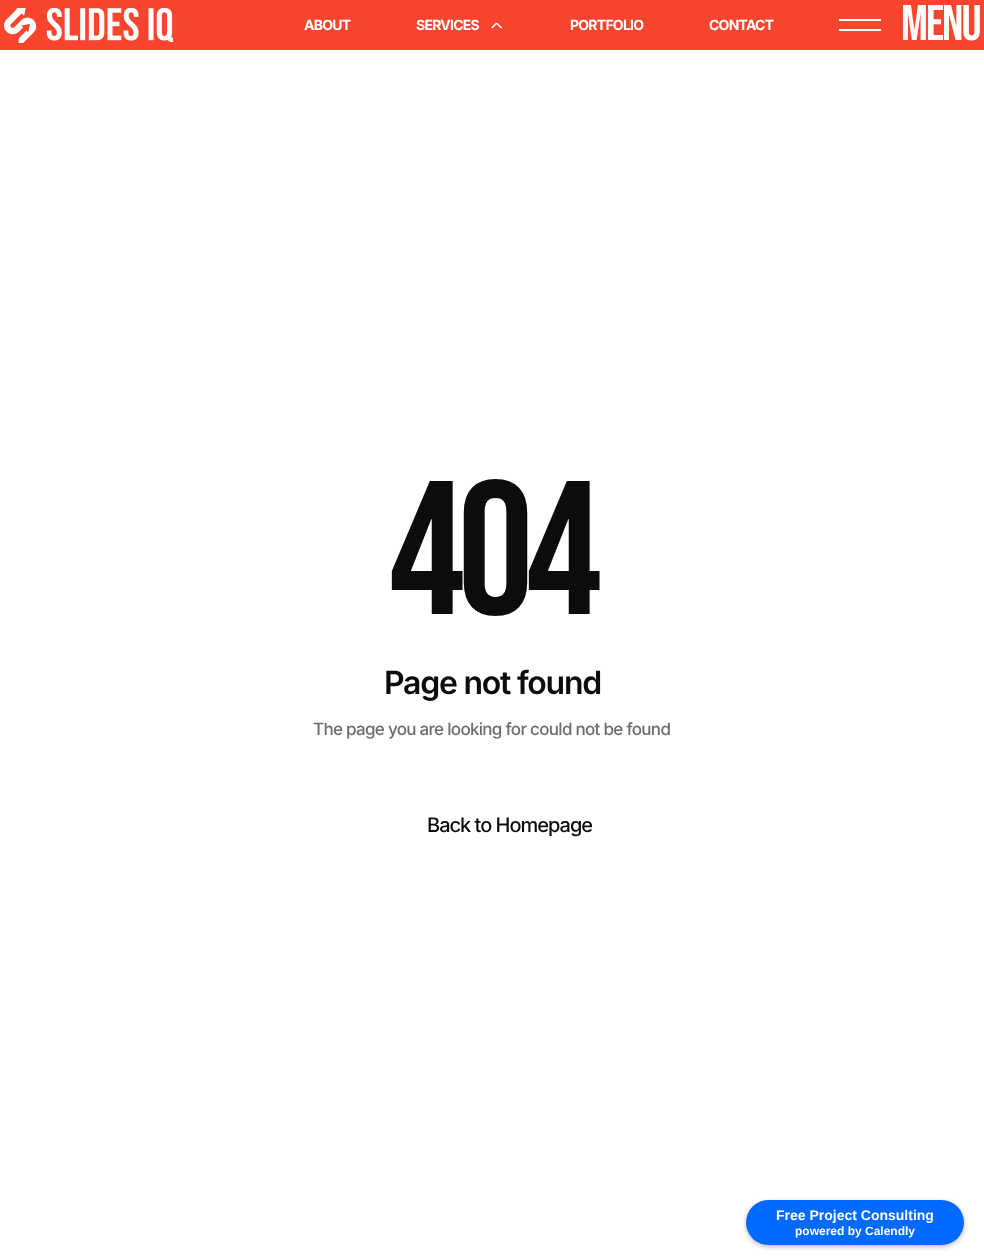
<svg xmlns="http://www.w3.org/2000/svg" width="984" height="1260">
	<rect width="100%" height="100%" fill="#FFFFFF" />
	<rect x="0" y="0" width="984" height="50" fill="#F9452D" />
	<image x="4" y="8" width="169" height="35" href="assets/img1.png" />
	<g font-family="Inter" font-size="14" font-weight="700" letter-spacing="-0.75" fill="#FFFFFF">
		<text x="304" y="30">ABOUT</text>
		<text x="416" y="30">SERVICES</text>
	</g>
	<image x="491" y="22" width="11" height="7" href="assets/img2.png" />
	<g font-family="Inter" font-size="14" font-weight="700" letter-spacing="-0.75" fill="#FFFFFF">
		<text x="570" y="30">PORTFOLIO</text>
		<text x="709" y="30">CONTACT</text>
	</g>
	<rect x="839" y="19" width="42" height="2" fill="#FFFFFF" />
	<rect x="839" y="29" width="42" height="2" fill="#FFFFFF" />
	<text x="901" y="40" font-family="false" font-size="50" letter-spacing="-2" fill="#FFFFFF">MENU</text>
	<text x="389" y="614" font-family="false" font-size="190" letter-spacing="-7.5" fill="#0C0C0C">404</text>
	<text x="384" y="694" font-family="Inter" font-size="32" font-weight="600" letter-spacing="-1.25" fill="#0C0C0C">Page not found</text>
	<text x="313" y="735" font-family="Inter" font-size="17" font-weight="500" letter-spacing="-0.7" fill="#6D6D6D">The page you are looking for could not be found</text>
	<text x="427" y="832" font-family="Inter" font-size="20" font-weight="500" letter-spacing="-1" fill="#0C0C0C">Back to Homepage</text>
	<rect x="746" y="1202" width="218" height="45" rx="22.5" fill="#000000" fill-opacity="0.25" filter="blur(2.5px)" />
	<rect x="746" y="1200" width="218" height="45" rx="22.5" fill="#0069FF" />
	<text x="776" y="1220" font-family="Liberation Sans" font-size="14" font-weight="700" fill="#FFFFFF">Free Project Consulting</text>
	<text x="795" y="1235" font-family="Liberation Sans" font-size="12" font-weight="700" fill="#FFFFFF">powered by Calendly</text>
</svg>
